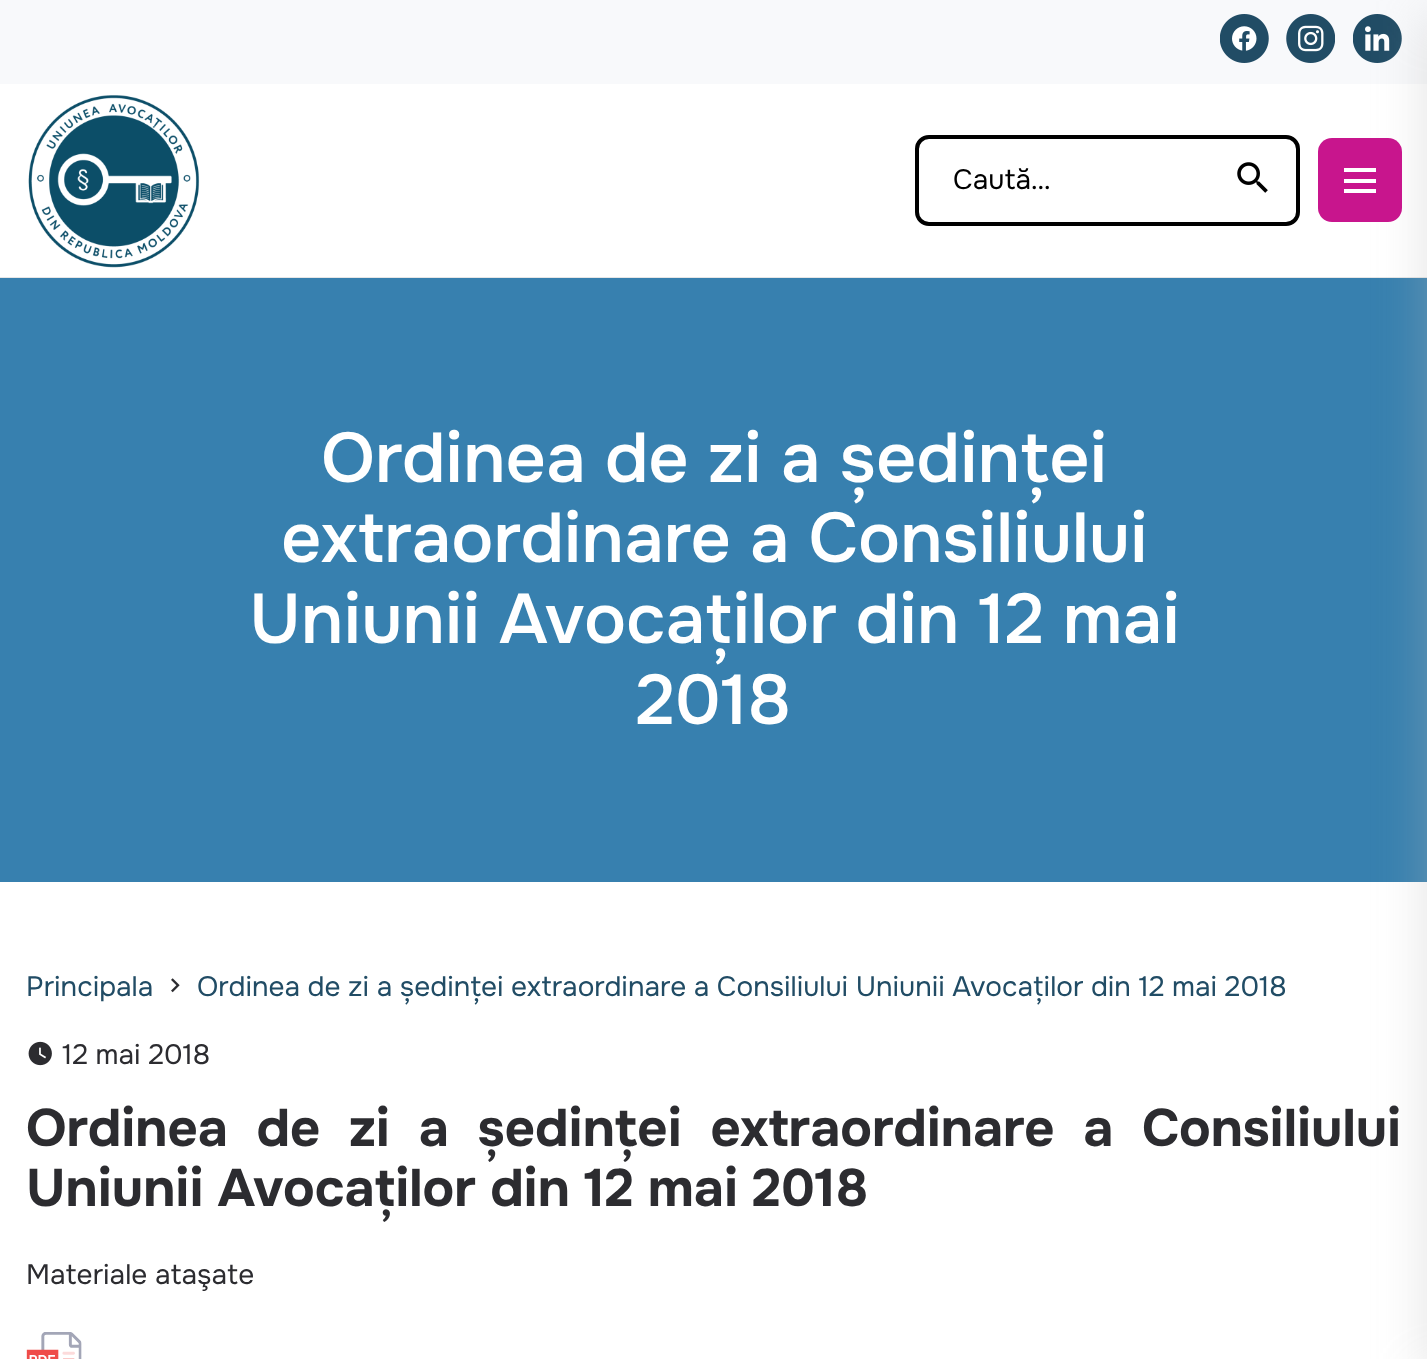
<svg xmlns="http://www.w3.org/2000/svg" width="1427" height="1359">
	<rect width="100%" height="100%" fill="#FFFFFF" />
	<rect x="0" y="277" width="1427" height="1" fill="#E6E6E6" />
	<rect x="0" y="0" width="1427" height="84" fill="#F8F9FB" />
	<image x="1220" y="14" width="49" height="49" href="assets/img1.png" />
	<image x="1286" y="14" width="49" height="49" href="assets/img2.png" />
	<image x="1353" y="14" width="49" height="49" href="assets/img3.png" />
	<image x="28" y="95" width="172" height="173" href="assets/img4.png" />
	<rect x="917" y="137" width="381" height="87" rx="12" fill="none" stroke="#000000" stroke-width="4" />
	<text x="953" y="189" font-family="Onest" font-size="28" fill="#000000">Caută…</text>
	<image x="1237" y="162" width="31" height="31" href="assets/img5.png" />
	<rect x="0" y="278" width="1427" height="604" fill="#3780AF" />
	<rect x="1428" y="18" width="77" height="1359" fill="#B6B6B6" fill-opacity="0.4" filter="blur(26px)" />
	<rect x="1318" y="138" width="84" height="84" rx="14" fill="#C8158D" />
	<rect x="1344" y="168" width="32" height="4" fill="#FFFFFF" />
	<rect x="1344" y="179" width="32" height="4" fill="#FFFFFF" />
	<rect x="1344" y="189" width="32" height="4" fill="#FFFFFF" />
	<g font-family="Onest" font-size="70.2" font-weight="500" fill="#FFFFFF">
		<text x="321" y="482">Ordinea de zi a ședinței</text>
		<text x="281" y="562">extraordinare a Consiliului</text>
		<text x="249" y="643">Uniunii Avocaților din 12 mai</text>
		<text x="636" y="724">2018</text>
	</g>
	<text x="26" y="996" font-family="Onest" font-size="28" fill="#214C65">Principala</text>
	<image x="171" y="978" width="9" height="15" href="assets/img6.png" />
	<text x="197" y="996" font-family="Onest" font-size="28" fill="#214C65">Ordinea de zi a ședinței extraordinare a Consiliului Uniunii Avocaților din 12 mai 2018</text>
	<image x="28" y="1041" width="24" height="25" href="assets/img7.png" />
	<text x="62" y="1064" font-family="Onest" font-size="28" fill="#2C2C30">12 mai 2018</text>
	<g font-family="Onest" font-size="52.55" font-weight="700" fill="#2C2C30">
		<text x="26" y="1146" word-spacing="14.5">Ordinea de zi a ședinței extraordinare a Consiliului</text>
		<text x="26" y="1206">Uniunii Avocaților din 12 mai 2018</text>
	</g>
	<text x="26" y="1284" font-family="Onest" font-size="28" fill="#2C2C30">Materiale ataşate</text>
	<image x="26" y="1332" width="56" height="27" href="assets/img8.png" />
</svg>
